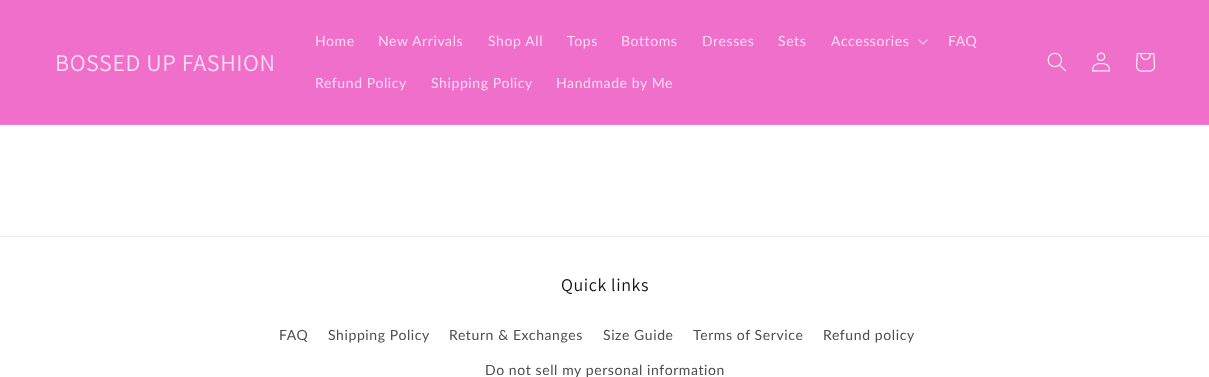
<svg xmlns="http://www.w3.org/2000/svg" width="1209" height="377">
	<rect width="100%" height="100%" fill="#FFFFFF" />
	<rect x="0" y="0" width="1209" height="124" fill="#EF6FCB" />
	<rect x="0" y="124" width="1209" height="1" fill="#F07BCF" />
	<text x="55" y="71" font-family="Assistant" font-size="24" letter-spacing="0.6" fill="#FBDBF2">BOSSED UP FASHION</text>
	<g font-family="Lato" font-size="14" letter-spacing="0.6" fill="#FBDBF2">
		<text x="315" y="46">Home</text>
		<text x="378" y="46">New Arrivals</text>
		<text x="488" y="46">Shop All</text>
		<text x="567" y="46">Tops</text>
		<text x="621" y="46">Bottoms</text>
		<text x="702" y="46">Dresses</text>
		<text x="778" y="46">Sets</text>
		<text x="831" y="46">Accessories</text>
	</g>
	<image x="918" y="39" width="10" height="6" href="assets/img1.png" />
	<g font-family="Lato" font-size="14" letter-spacing="0.6" fill="#FBDBF2">
		<text x="948" y="46">FAQ</text>
		<text x="315" y="88">Refund Policy</text>
		<text x="431" y="88">Shipping Policy</text>
		<text x="556" y="88">Handmade by Me</text>
	</g>
	<image x="1047" y="52" width="19" height="20" href="assets/img2.png" />
	<image x="1092" y="52" width="18" height="20" href="assets/img3.png" />
	<image x="1136" y="53" width="20" height="19" href="assets/img4.png" />
	<rect x="0" y="236" width="1209" height="1" fill="#ECECEC" />
	<text x="561" y="291" font-family="Assistant" font-size="18" letter-spacing="0.6" fill="#121212">Quick links</text>
	<g font-family="Lato" font-size="14" letter-spacing="0.6" fill="#4D4D4D">
		<text x="279" y="340">FAQ</text>
		<text x="328" y="340">Shipping Policy</text>
		<text x="449" y="340">Return &amp; Exchanges</text>
		<text x="603" y="340">Size Guide</text>
		<text x="693" y="340">Terms of Service</text>
		<text x="823" y="340">Refund policy</text>
		<text x="485" y="375">Do not sell my personal information</text>
	</g>
</svg>
